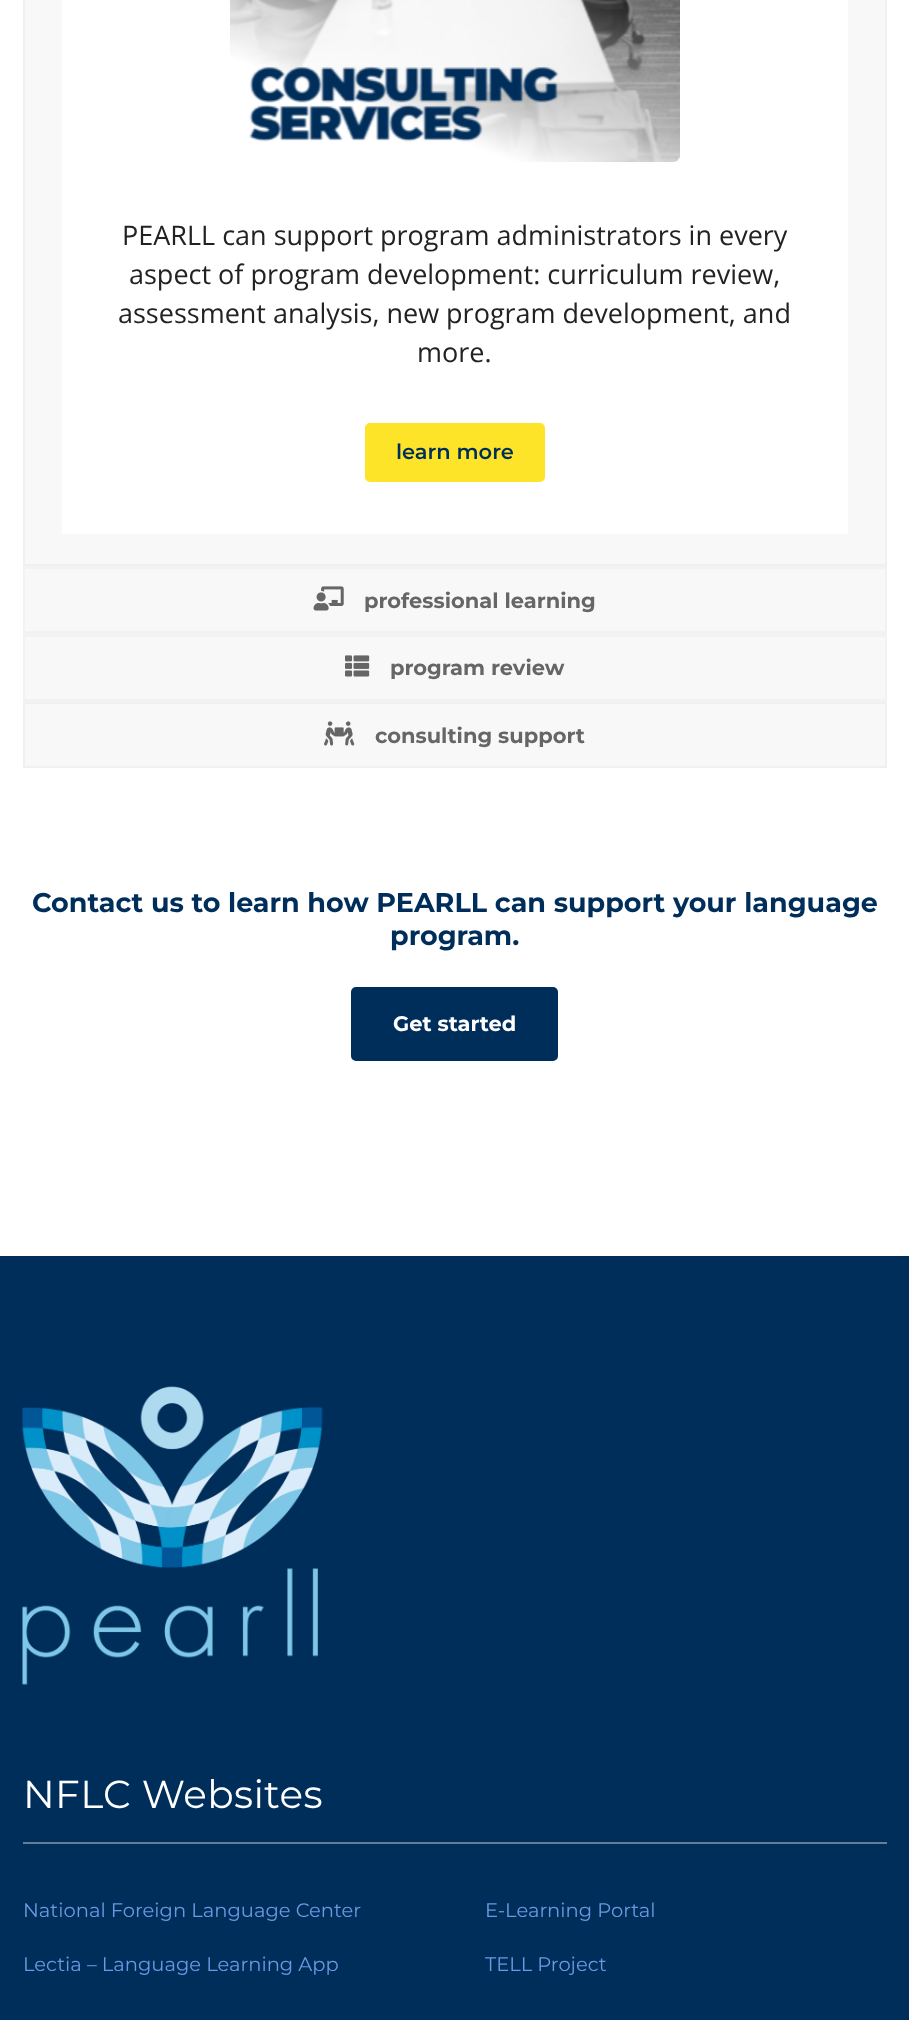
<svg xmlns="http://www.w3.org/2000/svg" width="909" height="2020">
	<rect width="100%" height="100%" fill="#FFFFFF" />
	<rect x="23" y="566" width="864" height="136" fill="#F2F2F2" />
	<rect x="24" y="-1" width="862" height="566" fill="#F8F8F8" stroke="#F0F0F0" stroke-width="2" />
	<rect x="62" y="0" width="786" height="534" fill="#FFFFFF" />
	<image x="230" y="0" width="450" height="162" href="assets/img1.png" />
	<g font-family="Open Sans" font-size="27" fill="#222222">
		<text x="122" y="245">PEARLL can support program administrators in every</text>
		<text x="129" y="284">aspect of program development: curriculum review,</text>
		<text x="118" y="323">assessment analysis, new program development, and</text>
		<text x="417" y="362">more.</text>
	</g>
	<rect x="367.5" y="425.5" width="175" height="54" rx="2.5" fill="#FDE428" stroke="#FDE428" stroke-width="5" />
	<text x="396" y="459" font-family="Montserrat" font-size="21" font-weight="600" fill="#002E5B">learn more</text>
	<rect x="25" y="569" width="860" height="62" fill="#F8F8F8" />
	<image x="313" y="586" width="31" height="25" href="assets/img2.png" />
	<text x="364" y="608" font-family="Montserrat" font-size="21" font-weight="700" fill="#666666">professional learning</text>
	<rect x="25" y="637" width="860" height="62" fill="#F8F8F8" />
	<image x="345" y="655" width="25" height="22" href="assets/img3.png" />
	<text x="390" y="675" font-family="Montserrat" font-size="21" font-weight="700" fill="#666666">program review</text>
	<rect x="24" y="703" width="862" height="64" fill="#F8F8F8" stroke="#F0F0F0" stroke-width="2" />
	<image x="324" y="721" width="31" height="25" href="assets/img4.png" />
	<text x="375" y="743" font-family="Montserrat" font-size="21" font-weight="700" fill="#666666">consulting support</text>
	<g font-family="Montserrat" font-size="27" font-weight="700" fill="#002E5B">
		<text x="32" y="912">Contact us to learn how PEARLL can support your language</text>
		<text x="390" y="945">program.</text>
	</g>
	<rect x="353.5" y="989.5" width="202" height="69" rx="2.5" fill="#002E5B" stroke="#002E5B" stroke-width="5" />
	<text x="393" y="1031" font-family="Montserrat" font-size="21" font-weight="700" fill="#FFFFFF">Get started</text>
	<rect x="0" y="1256" width="909" height="764" fill="#002E5B" />
	<image x="22" y="1386" width="301" height="299" href="assets/img5.png" />
	<rect x="23" y="1842" width="864" height="2" fill="#667D94" />
	<text x="23" y="1808" font-family="Montserrat" font-size="39" letter-spacing="0.4" fill="#FFFFFF">NFLC Websites</text>
	<g font-family="Montserrat" font-size="19.5" fill="#6C98E1">
		<text x="23" y="1917">National Foreign Language Center</text>
		<text x="485" y="1917">E-Learning Portal</text>
		<text x="23" y="1971">Lectia – Language Learning App</text>
		<text x="485" y="1971">TELL Project</text>
	</g>
</svg>
